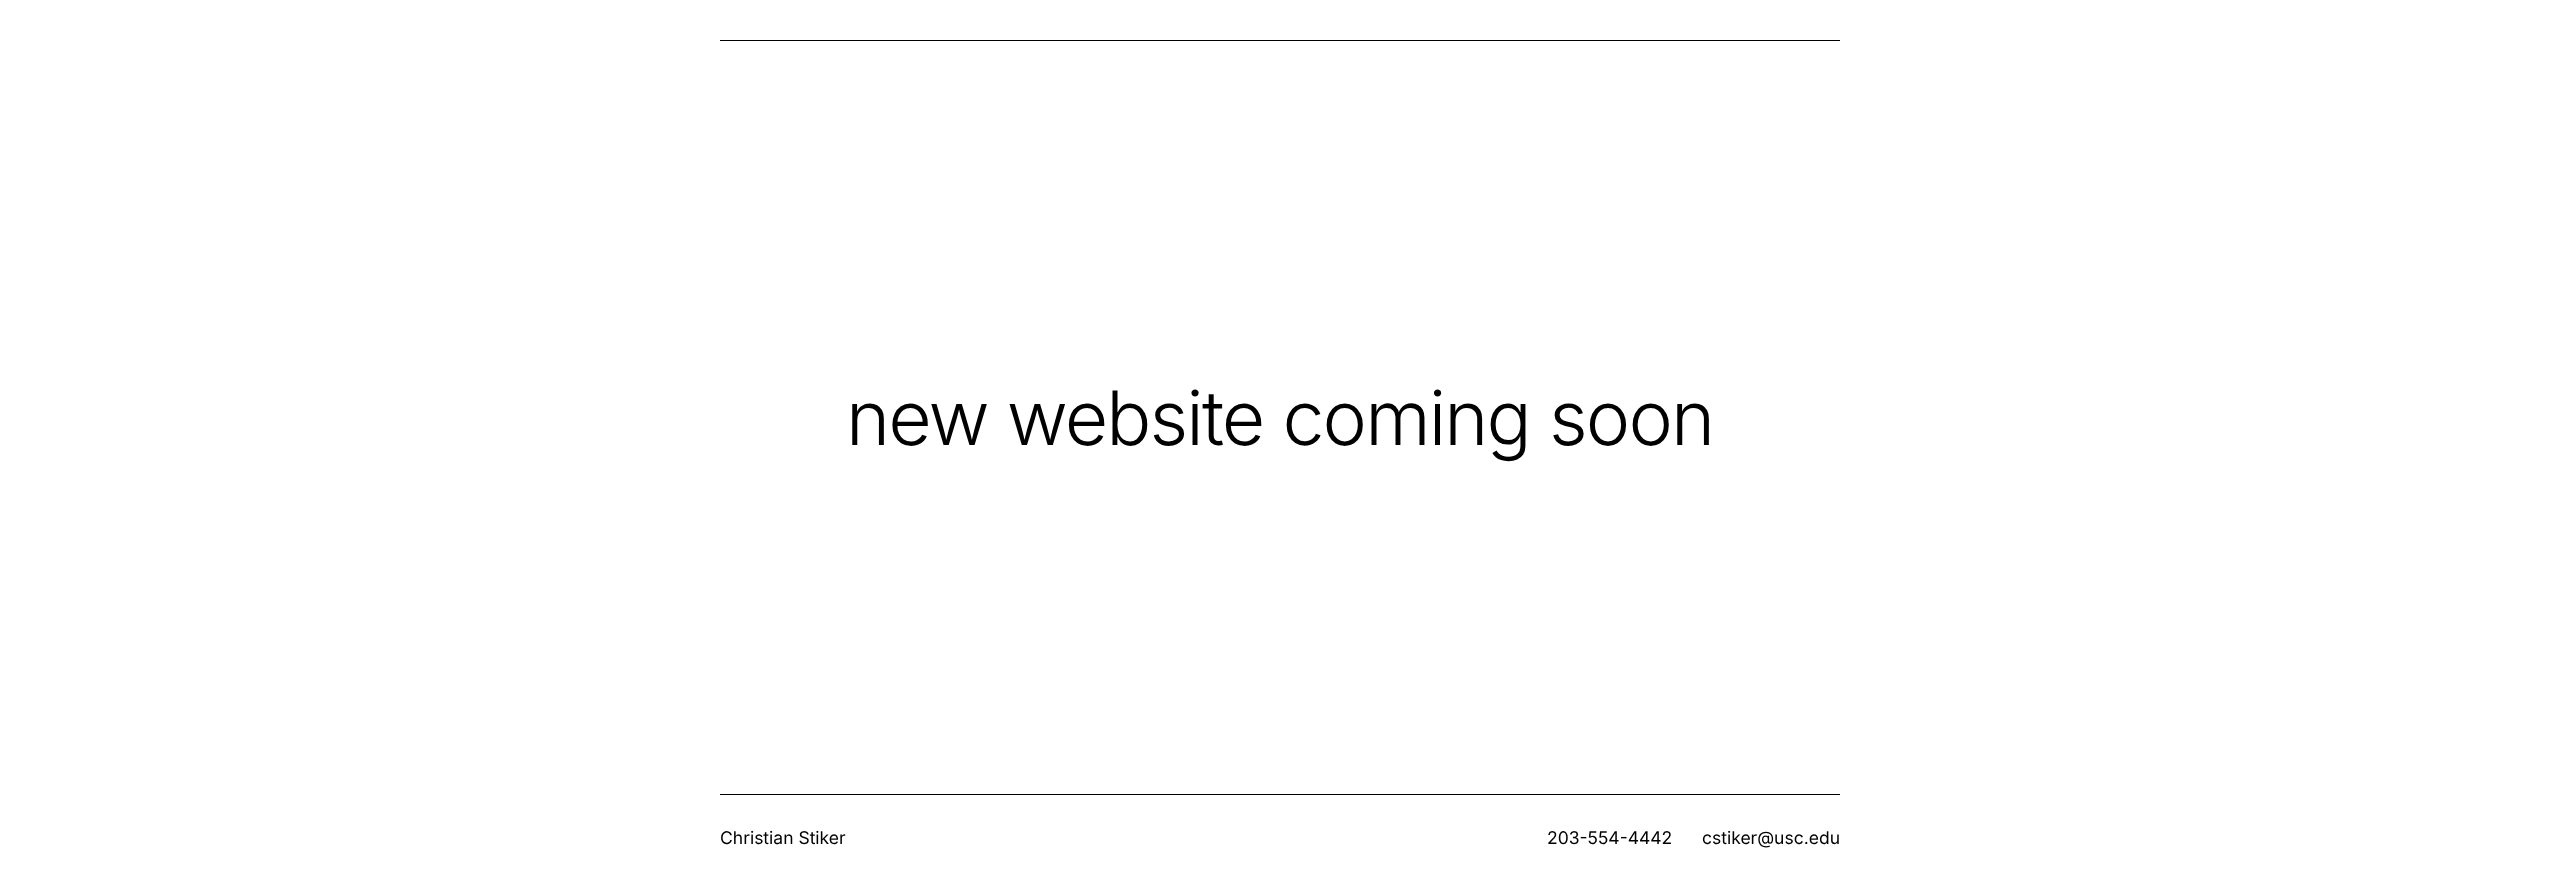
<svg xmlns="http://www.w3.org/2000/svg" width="2559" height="890">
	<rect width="100%" height="100%" fill="#FFFFFF" />
	<rect x="720" y="40" width="1120" height="1" fill="#000000" />
	<text x="846" y="445" font-family="Inter" font-size="75" font-weight="300" letter-spacing="-1.9" fill="#000000">new website coming soon</text>
	<rect x="720" y="794" width="1120" height="1" fill="#000000" />
	<g font-family="Inter" font-size="17.5" fill="#000000">
		<text x="720" y="844">Christian Stiker</text>
		<text x="1547" y="844">203-554-4442</text>
		<text x="1702" y="844">cstiker@usc.edu</text>
	</g>
</svg>
